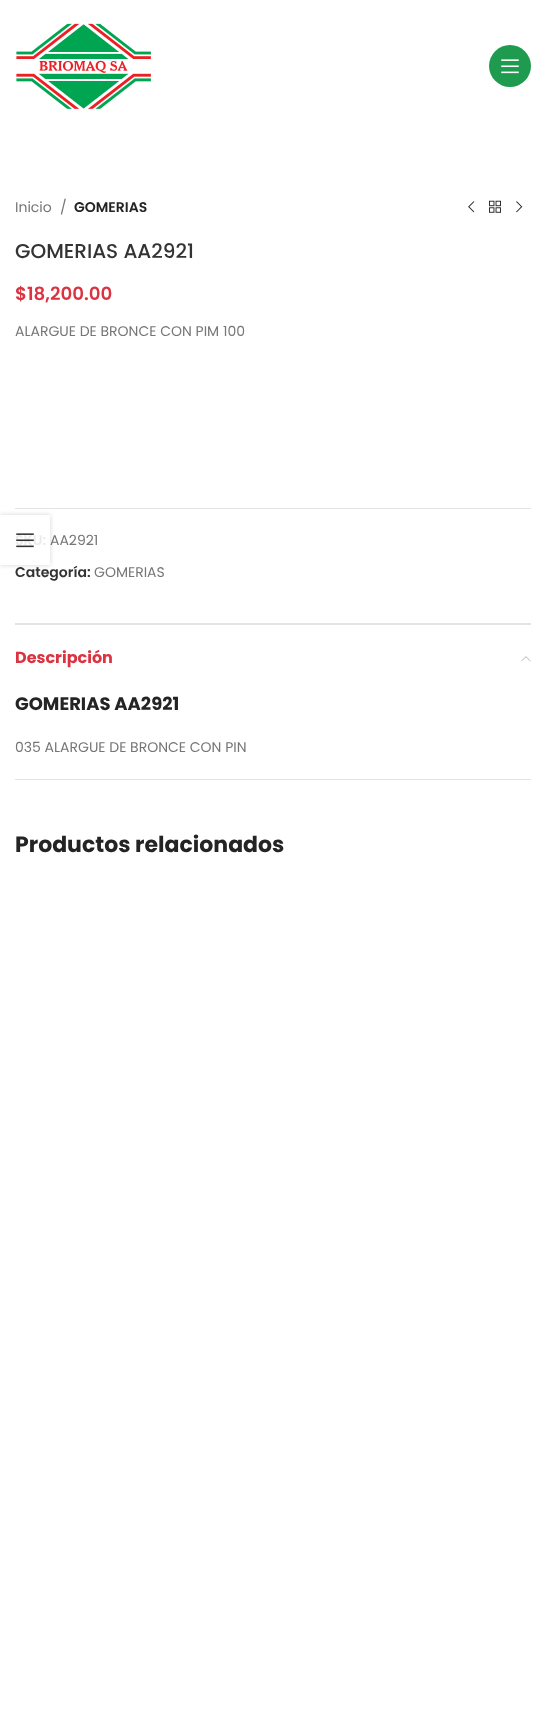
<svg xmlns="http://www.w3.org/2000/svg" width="546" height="1718">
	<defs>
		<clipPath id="clip1"><path d="M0 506H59V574H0ZM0 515H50V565H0Z" clip-rule="evenodd" /></clipPath>
	</defs>
	<rect width="100%" height="100%" fill="#FFFFFF" />
	<image x="16" y="23" width="135" height="86" href="assets/img1.png" />
	<circle cx="510" cy="66" r="21" fill="#1F9B4F" />
	<image x="501" y="59" width="18" height="15" href="assets/img2.png" />
	<g font-family="Poppins" font-size="14" fill="#767676">
		<text x="15" y="212">Inicio</text>
		<text x="60" y="212">/</text>
	</g>
	<text x="74" y="212" font-family="Poppins" font-size="14" font-weight="600" fill="#242424">GOMERIAS</text>
	<image x="468" y="201" width="7" height="12" href="assets/img3.png" />
	<image x="489" y="200" width="12" height="13" href="assets/img4.png" />
	<image x="516" y="201" width="7" height="12" href="assets/img5.png" />
	<text x="15" y="258" font-family="Poppins" font-size="20" font-weight="500" fill="#333333">GOMERIAS AA2921</text>
	<text x="15" y="300" font-family="Poppins" font-size="18.25" font-weight="600" fill="#DB3340">$18,200.00</text>
	<text x="15" y="336" font-family="Poppins" font-size="14" fill="#767676">ALARGUE DE BRONCE CON PIM 100</text>
	<rect x="15" y="508" width="516" height="1" fill="#E4E4E4" />
	<text x="15" y="545" font-family="Poppins" font-size="14" font-weight="600" fill="#EBEBEB">SKU:</text>
	<text x="50" y="545" font-family="Poppins" font-size="14" fill="#767676">AA2921</text>
	<text x="15" y="577" font-family="Poppins" font-size="14" font-weight="600" fill="#333333">Categoría:</text>
	<text x="94" y="577" font-family="Poppins" font-size="14" fill="#767676">GOMERIAS</text>
	<rect x="15" y="623" width="516" height="2" fill="#E4E4E4" />
	<rect x="15" y="779" width="516" height="1" fill="#E4E4E4" />
	<text x="15" y="663" font-family="Poppins" font-size="16" font-weight="700" fill="#DB3340">Descripción</text>
	<image x="521" y="656" width="10" height="6" href="assets/img6.png" />
	<text x="15" y="710" font-family="Poppins" font-size="18" font-weight="700" fill="#242424">GOMERIAS AA2921</text>
	<text x="15" y="752" font-family="Poppins" font-size="14" fill="#767676">035 ALARGUE DE BRONCE CON PIN</text>
	<text x="15" y="852" font-family="Poppins" font-size="22" font-weight="700" fill="#242424">Productos relacionados</text>
	<g clip-path="url(#clip1)">
		<rect x="0" y="515" width="50" height="50" fill="#000000" fill-opacity="0.17" filter="blur(2.5px)" />
	</g>
	<image x="16" y="533" width="18" height="15" href="assets/img7.png" />
</svg>
